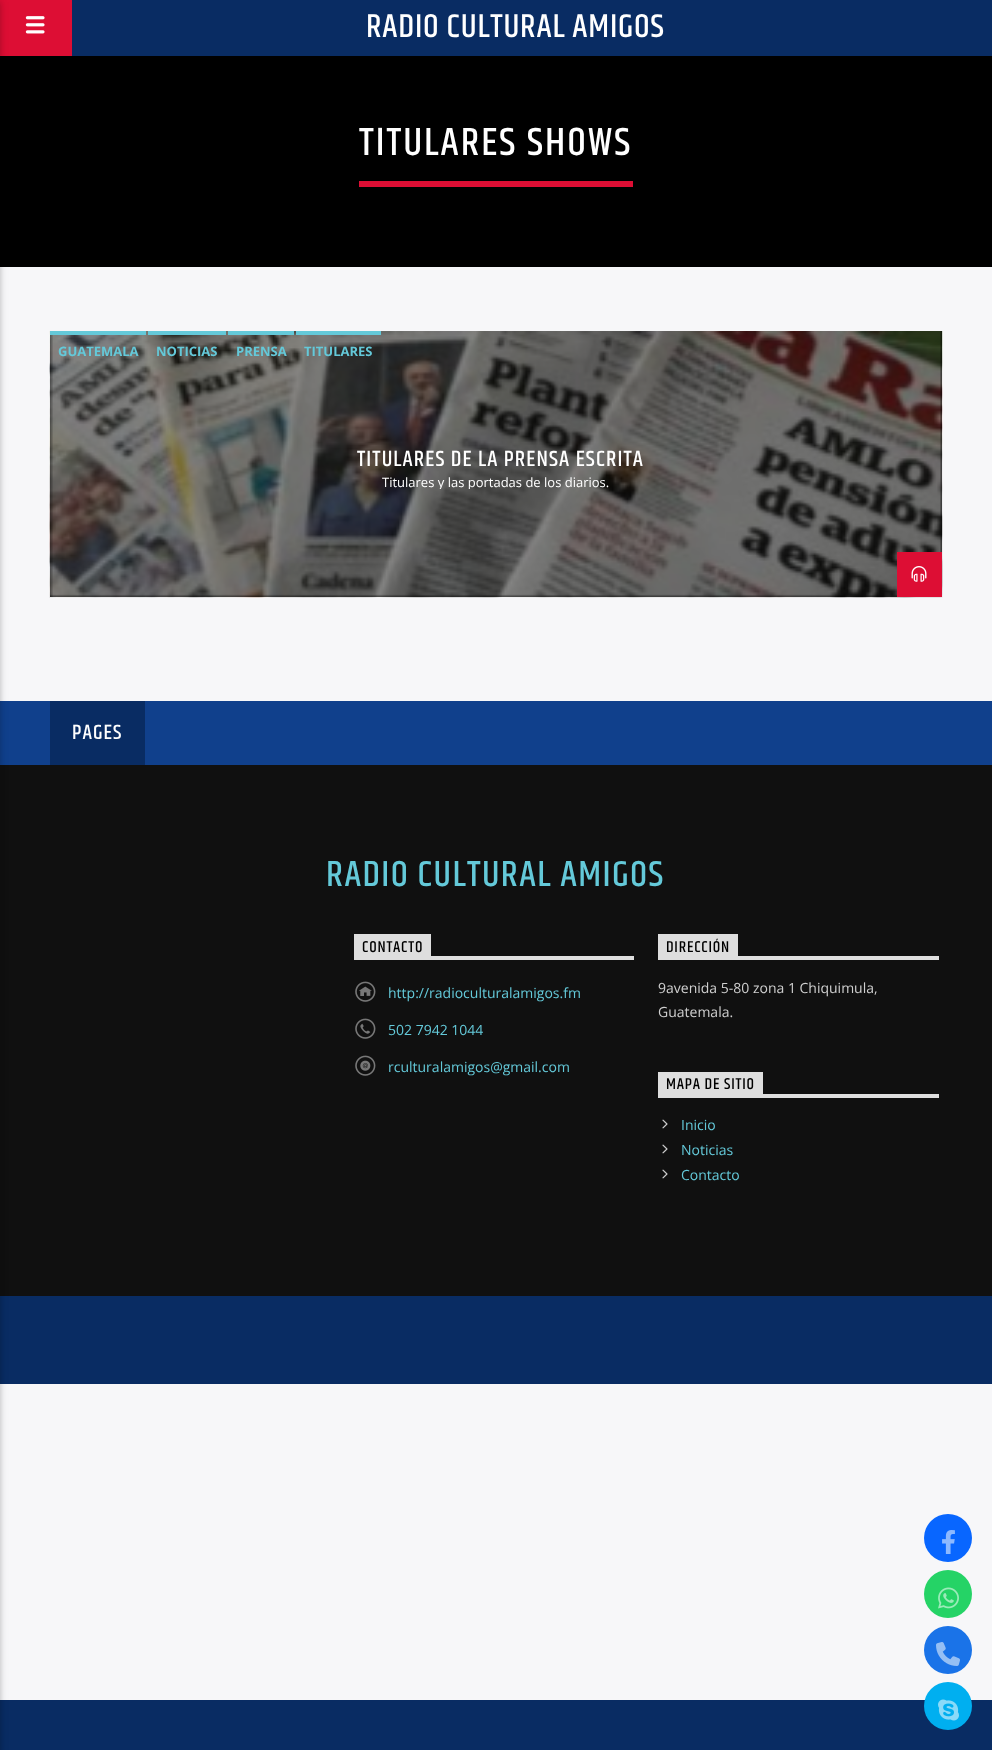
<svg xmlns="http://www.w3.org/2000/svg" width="992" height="1750">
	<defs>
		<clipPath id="clip1"><rect x="60" y="473" width="872" height="16" /></clipPath>
	</defs>
	<rect width="100%" height="100%" fill="#F7F7F9" />
	<rect x="0" y="0" width="72" height="56" fill="#DD0E34" />
	<rect x="0" y="56" width="992" height="211" fill="#000000" />
	<rect x="0" y="701" width="992" height="64" fill="#10408C" />
	<rect x="0" y="765" width="992" height="531" fill="#101010" />
	<rect x="0" y="1296" width="992" height="88" fill="#092C63" />
	<rect x="0" y="1700" width="992" height="50" fill="#092C63" />
	<rect x="-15" y="2" width="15" height="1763" fill="#000000" fill-opacity="0.12" filter="blur(5px)" />
	<rect x="-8" y="2" width="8" height="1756" fill="#000000" fill-opacity="0.16" filter="blur(2.5px)" />
	<rect x="72" y="0" width="920" height="56" fill="#092C63" />
	<image x="25" y="16" width="20" height="18" href="assets/img1.png" />
	<text x="366" y="37" font-family="Khand" font-size="33.5" font-weight="500" letter-spacing="0.8" fill="#FFFFFF">RADIO CULTURAL AMIGOS</text>
	<rect x="359" y="181" width="274" height="6" fill="#DD0E34" />
	<text x="359" y="155" font-family="Khand" font-size="40" font-weight="500" letter-spacing="2" fill="#FFFFFF">TITULARES SHOWS</text>
	<rect x="50" y="331" width="892" height="266" fill="#000000" />
	<image x="49" y="331" width="894" height="267" href="assets/img2.png" />
	<rect x="50" y="331" width="96" height="4" fill="#64C9D9" />
	<text x="58" y="356" font-family="Open Sans" font-size="13" font-weight="700" fill="#64C9D9">GUATEMALA</text>
	<rect x="148" y="331" width="78" height="4" fill="#64C9D9" />
	<text x="156" y="356" font-family="Open Sans" font-size="13" font-weight="700" fill="#64C9D9">NOTICIAS</text>
	<rect x="228" y="331" width="66" height="4" fill="#64C9D9" />
	<text x="236" y="356" font-family="Open Sans" font-size="13" font-weight="700" fill="#64C9D9">PRENSA</text>
	<rect x="296" y="331" width="85" height="4" fill="#64C9D9" />
	<text x="304" y="356" font-family="Open Sans" font-size="13" font-weight="700" fill="#64C9D9">TITULARES</text>
	<text x="357" y="466" font-family="Khand" font-size="22.4" font-weight="500" letter-spacing="1.1" fill="#FFFFFF">TITULARES DE LA PRENSA ESCRITA</text>
	<g clip-path="url(#clip1)">
		<text x="382" y="487" font-family="Open Sans" font-size="13" fill="#FFFFFF">Titulares y las portadas de los diarios.</text>
	</g>
	<rect x="897" y="552" width="45" height="45" fill="#DD0E34" />
	<image x="911" y="566" width="16" height="16" href="assets/img3.png" />
	<rect x="50" y="701" width="95" height="64" fill="#092C63" />
	<text x="72" y="739" font-family="Khand" font-size="21" font-weight="500" letter-spacing="1" fill="#FFFFFF">PAGES</text>
	<text x="326" y="886" font-family="Khand" font-size="36.75" font-weight="500" letter-spacing="1.4" fill="#64C9D9">RADIO CULTURAL AMIGOS</text>
	<rect x="431" y="956" width="203" height="4" fill="#DEDEDE" />
	<rect x="354" y="934" width="77" height="26" fill="#DEDEDE" />
	<text x="362" y="952" font-family="Khand" font-size="16" font-weight="500" letter-spacing="0.8" fill="#000000">CONTACTO</text>
	<image x="355" y="981" width="21" height="21" href="assets/img4.png" />
	<text x="388" y="998" font-family="Open Sans" font-size="14" fill="#64C9D9">http://radioculturalamigos.fm</text>
	<image x="355" y="1018" width="21" height="21" href="assets/img5.png" />
	<text x="388" y="1035" font-family="Open Sans" font-size="14" fill="#64C9D9">502 7942 1044</text>
	<image x="355" y="1055" width="21" height="21" href="assets/img6.png" />
	<text x="388" y="1072" font-family="Open Sans" font-size="14" fill="#64C9D9">rculturalamigos@gmail.com</text>
	<rect x="738" y="956" width="201" height="4" fill="#DEDEDE" />
	<rect x="658" y="934" width="80" height="26" fill="#DEDEDE" />
	<text x="666" y="952" font-family="Khand" font-size="16" font-weight="500" letter-spacing="0.8" fill="#000000">DIRECCIÓN</text>
	<g font-family="Open Sans" font-size="14" fill="#CFCFCF">
		<text x="658" y="993">9avenida 5-80 zona 1 Chiquimula,</text>
		<text x="658" y="1017">Guatemala.</text>
	</g>
	<rect x="763" y="1094" width="176" height="4" fill="#DEDEDE" />
	<rect x="658" y="1072" width="105" height="26" fill="#DEDEDE" />
	<text x="666" y="1089" font-family="Khand" font-size="16" font-weight="500" letter-spacing="0.8" fill="#000000">MAPA DE SITIO</text>
	<image x="662" y="1119" width="6" height="10" href="assets/img7.png" />
	<text x="681" y="1130" font-family="Open Sans" font-size="14" fill="#64C9D9">Inicio</text>
	<image x="662" y="1144" width="6" height="10" href="assets/img7.png" />
	<text x="681" y="1155" font-family="Open Sans" font-size="14" fill="#64C9D9">Noticias</text>
	<image x="662" y="1169" width="6" height="10" href="assets/img7.png" />
	<text x="681" y="1180" font-family="Open Sans" font-size="14" fill="#64C9D9">Contacto</text>
	<circle cx="948" cy="1538" r="24" fill="#0866FF" />
	<image x="942" y="1530" width="13" height="24" href="assets/img8.png" />
	<circle cx="948" cy="1594" r="24" fill="#25D366" />
	<image x="938" y="1587" width="21" height="22" href="assets/img9.png" />
	<circle cx="948" cy="1650" r="24" fill="#1A73E8" />
	<image x="936" y="1642" width="24" height="24" href="assets/img10.png" />
	<circle cx="948" cy="1706" r="24" fill="#00AFF0" />
	<image x="938" y="1699" width="21" height="22" href="assets/img11.png" />
</svg>
